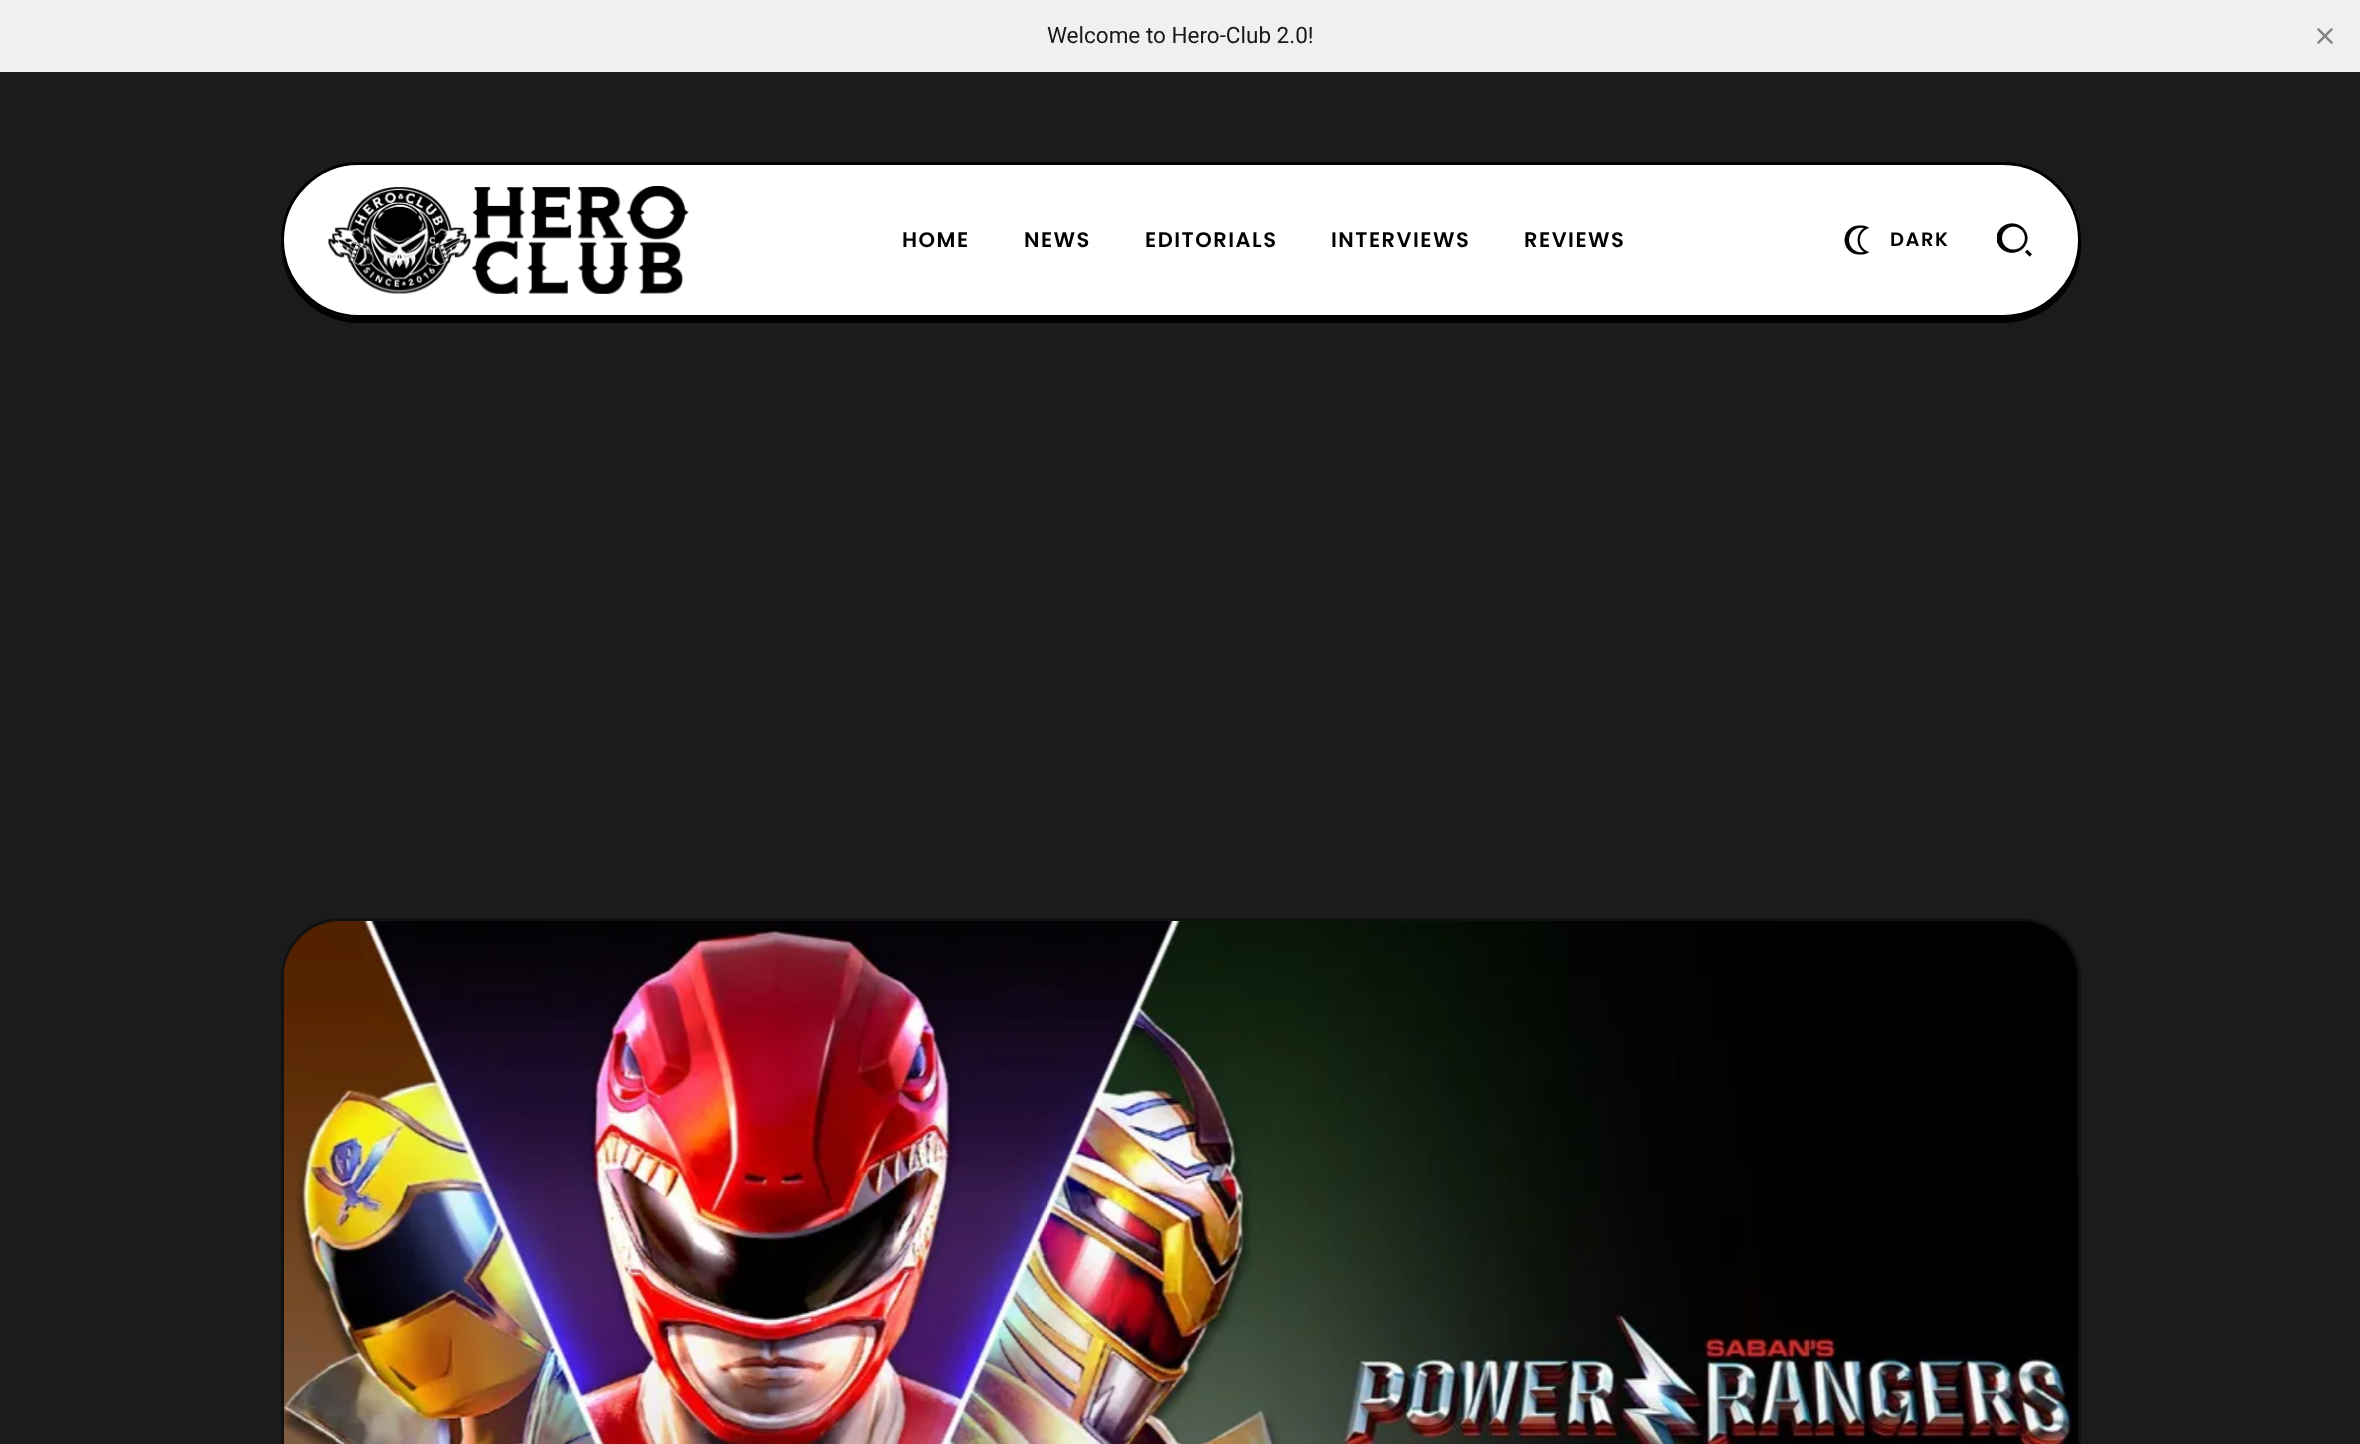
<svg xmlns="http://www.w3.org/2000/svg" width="2360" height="1444">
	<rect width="100%" height="100%" fill="#1B1B1B" />
	<rect x="0" y="0" width="2360" height="72" fill="#F0F0F0" />
	<text x="1047" y="43" font-family="Roboto" font-size="22.5" fill="#15171A">Welcome to Hero-Club 2.0!</text>
	<image x="2317" y="28" width="16" height="16" href="assets/img1.png" />
	<path d="M281 250C284 291 318 323 359 323H2003C2046 323 2081 288 2081 245L2080 235C2083 280 2048 318 2002 318H358C320 318 286 289 281 250Z" fill="#000000" />
	<rect x="282.5" y="163.5" width="1797" height="153" rx="76.5" fill="#FFFFFF" stroke="#000000" stroke-width="3" />
	<image x="328" y="186" width="361" height="108" href="assets/img2.png" />
	<g font-family="Poppins" font-size="21" font-weight="600" letter-spacing="1.5" fill="#000000">
		<text x="902" y="247">HOME</text>
		<text x="1024" y="247">NEWS</text>
		<text x="1145" y="247">EDITORIALS</text>
		<text x="1331" y="247">INTERVIEWS</text>
		<text x="1524" y="247">REVIEWS</text>
	</g>
	<image x="1844" y="225" width="26" height="30" href="assets/img3.png" />
	<text x="1890" y="246" font-family="Poppins" font-size="19.5" font-weight="600" letter-spacing="1.5" fill="#000000">DARK</text>
	<image x="1997" y="223" width="35" height="34" href="assets/img4.png" />
	<rect x="282.5" y="919.5" width="1797" height="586" rx="58.5" fill="#111111" stroke="#111111" stroke-width="3" />
	<image x="284" y="921" width="1794" height="523" href="assets/img5.png" />
</svg>
